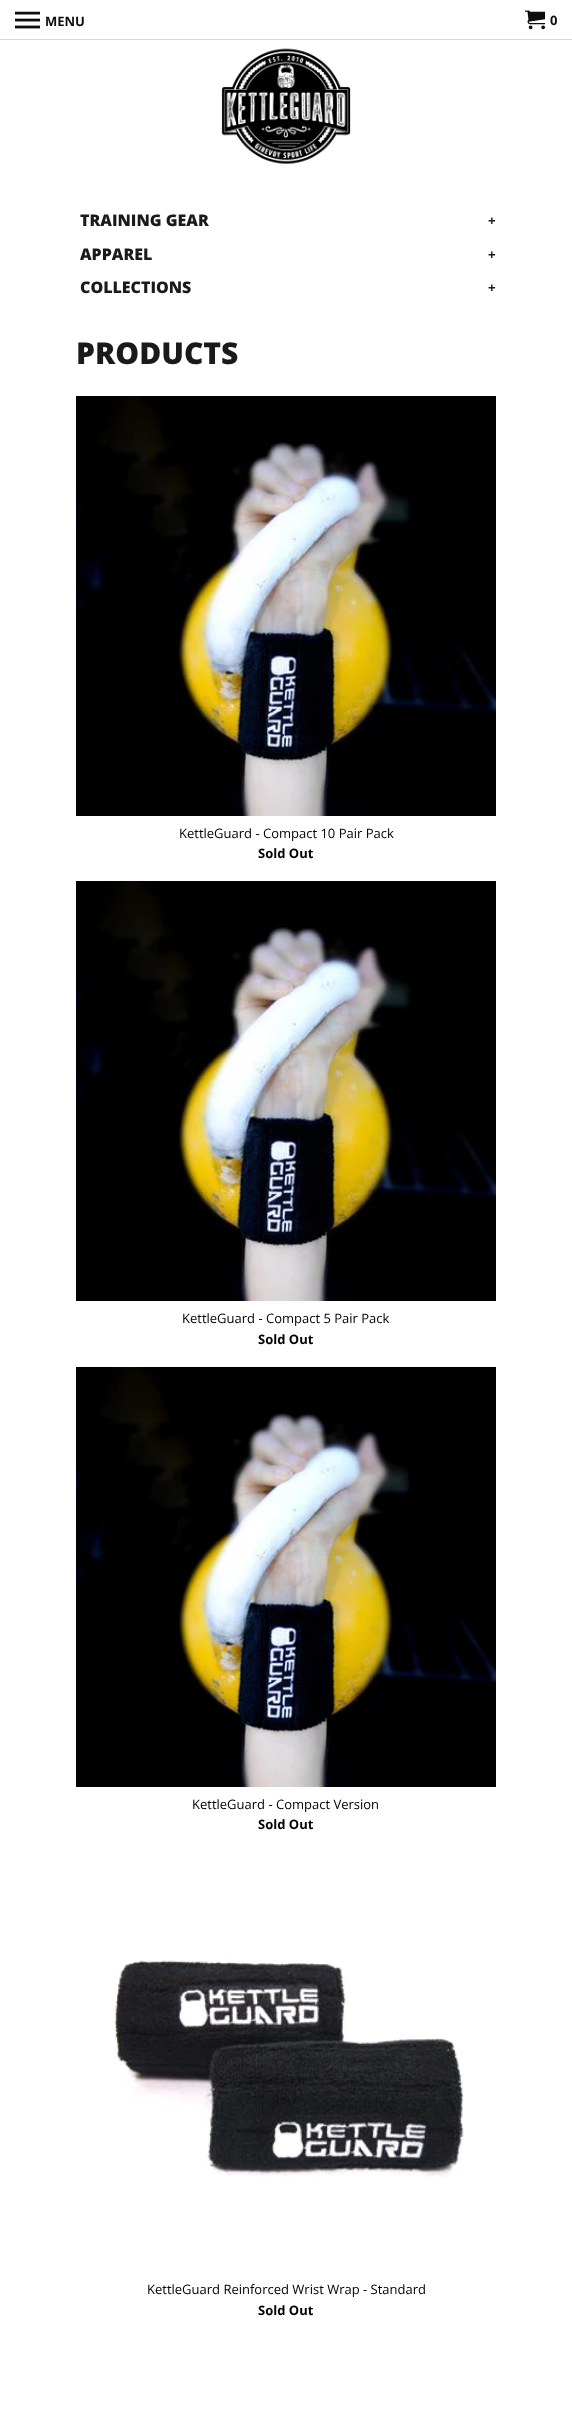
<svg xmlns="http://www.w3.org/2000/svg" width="572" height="2435">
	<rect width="100%" height="100%" fill="#FFFFFF" />
	<rect x="0" y="39" width="572" height="1" fill="#E0D8CA" />
	<image x="15" y="11" width="25" height="18" href="assets/img1.png" />
	<text x="45" y="26" font-family="Open Sans" font-size="13" font-weight="700" fill="#0D0D0D">MENU</text>
	<image x="525" y="10" width="20" height="20" href="assets/img2.png" />
	<text x="550" y="25" font-family="Open Sans" font-size="13" font-weight="700" fill="#0D0D0D">0</text>
	<image x="221" y="48" width="130" height="116" href="assets/img3.png" />
	<text x="80" y="226" font-family="Open Sans" font-size="16" font-weight="800" fill="#1A1A1A">TRAINING GEAR</text>
	<text x="488" y="225" font-family="Liberation Sans" font-size="13" font-weight="700" fill="#1A1A1A">+</text>
	<text x="80" y="260" font-family="Open Sans" font-size="16" font-weight="800" fill="#1A1A1A">APPAREL</text>
	<text x="488" y="259" font-family="Liberation Sans" font-size="13" font-weight="700" fill="#1A1A1A">+</text>
	<text x="80" y="293" font-family="Open Sans" font-size="16" font-weight="800" fill="#1A1A1A">COLLECTIONS</text>
	<text x="488" y="292" font-family="Liberation Sans" font-size="13" font-weight="700" fill="#1A1A1A">+</text>
	<text x="76" y="364" font-family="Open Sans" font-size="30" font-weight="800" fill="#1A1A1A">PRODUCTS</text>
	<image x="76" y="396" width="420" height="420" href="assets/img4.png" />
	<text x="179" y="838" font-family="Open Sans" font-size="13" fill="#000000">KettleGuard - Compact 10 Pair Pack</text>
	<text x="258" y="858" font-family="Open Sans" font-size="13" font-weight="700" fill="#000000">Sold Out</text>
	<image x="76" y="881" width="420" height="420" href="assets/img4.png" />
	<text x="182" y="1323" font-family="Open Sans" font-size="13" fill="#000000">KettleGuard - Compact 5 Pair Pack</text>
	<text x="258" y="1344" font-family="Open Sans" font-size="13" font-weight="700" fill="#000000">Sold Out</text>
	<image x="76" y="1367" width="420" height="420" href="assets/img5.png" />
	<text x="192" y="1809" font-family="Open Sans" font-size="13" fill="#000000">KettleGuard - Compact Version</text>
	<text x="258" y="1829" font-family="Open Sans" font-size="13" font-weight="700" fill="#000000">Sold Out</text>
	<image x="114" y="1960" width="350" height="218" href="assets/img6.png" />
	<text x="147" y="2294" font-family="Open Sans" font-size="13" fill="#000000">KettleGuard Reinforced Wrist Wrap - Standard</text>
	<text x="258" y="2315" font-family="Open Sans" font-size="13" font-weight="700" fill="#000000">Sold Out</text>
</svg>
